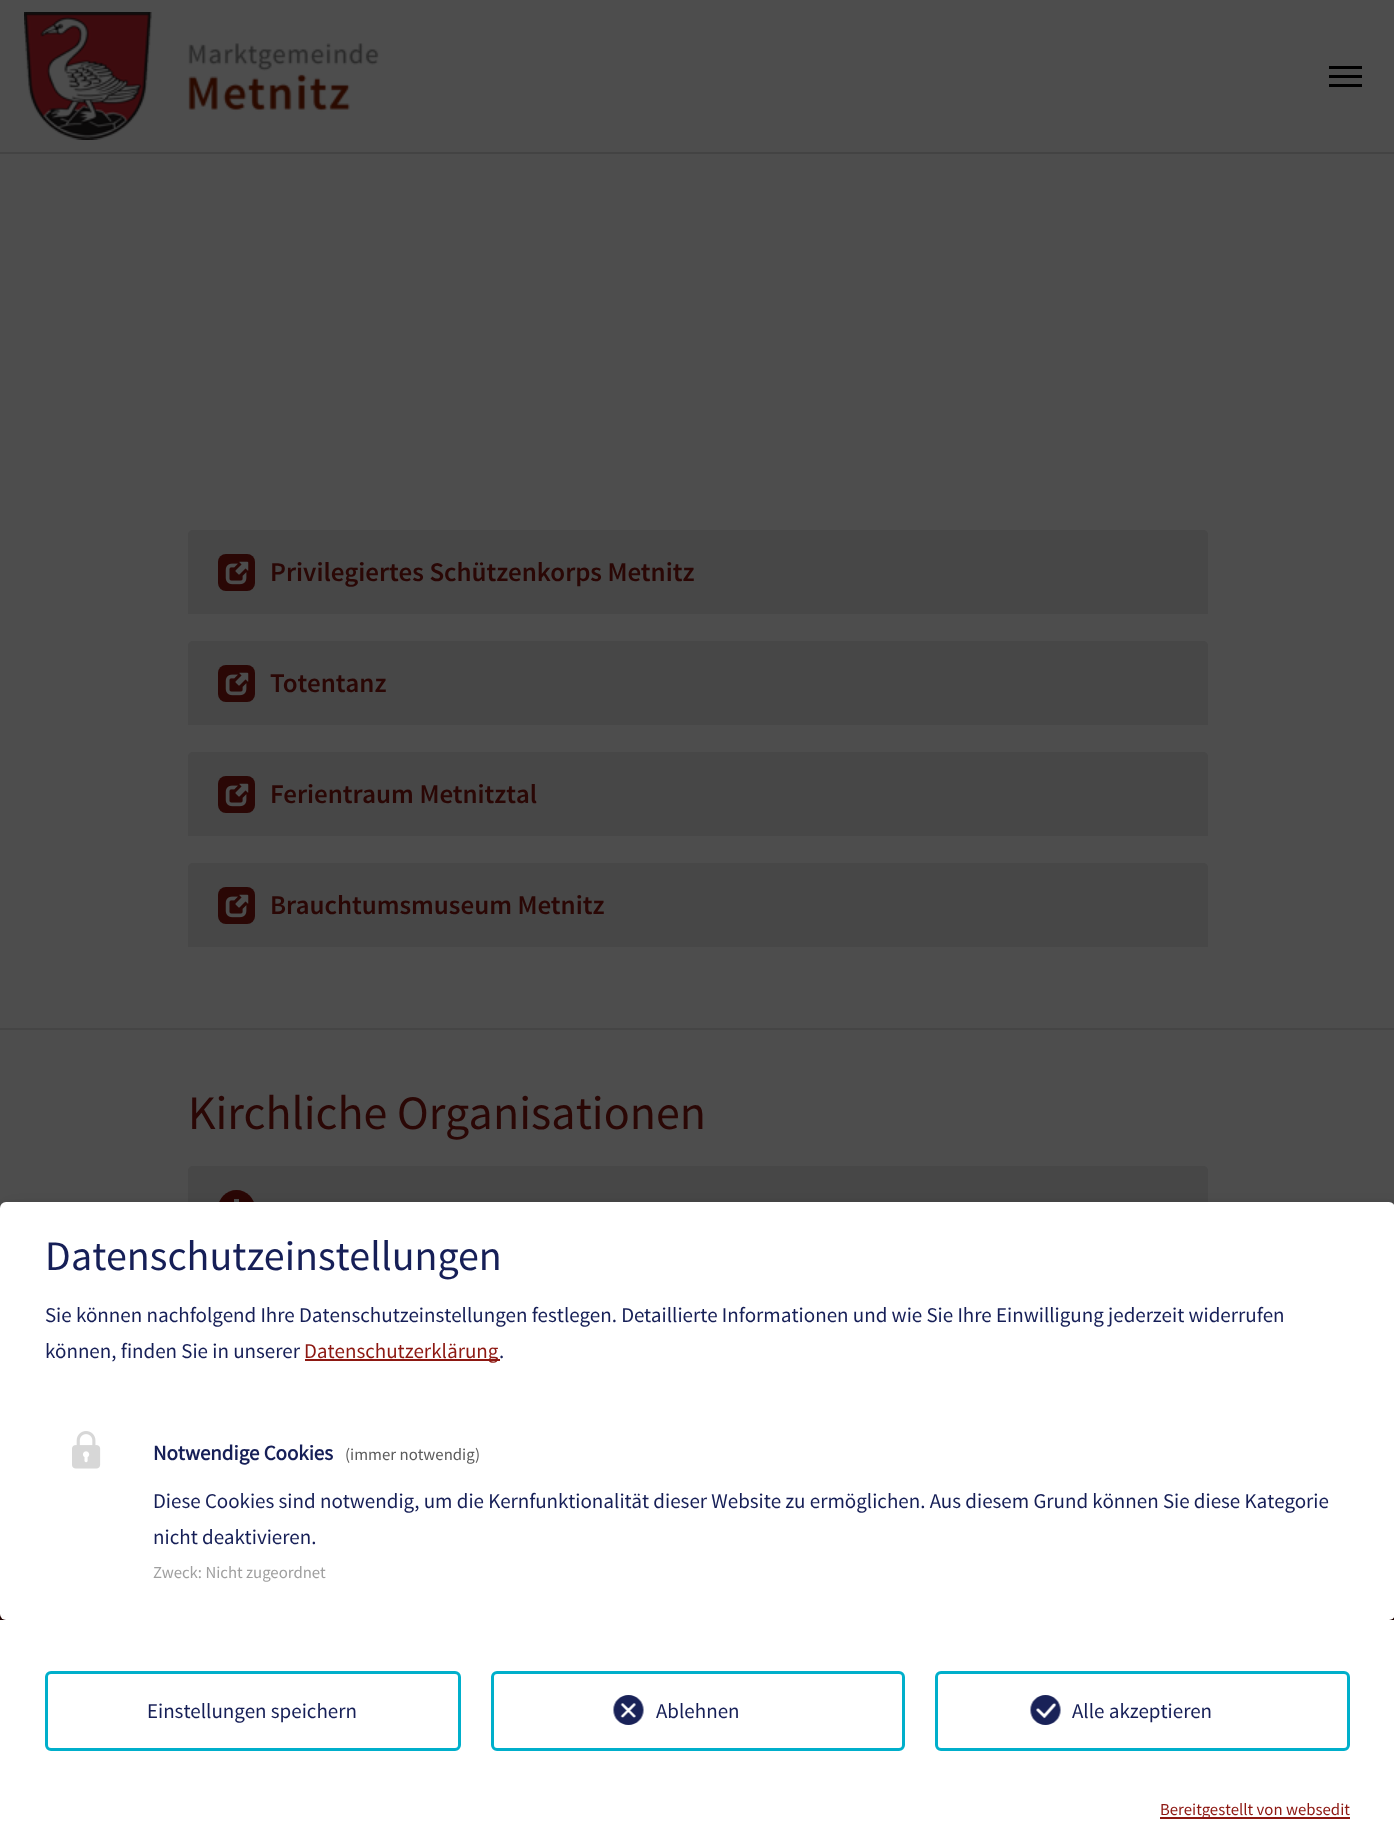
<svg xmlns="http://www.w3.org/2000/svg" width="1394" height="1845">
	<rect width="100%" height="100%" fill="#4D4D4D" />
	<rect x="0" y="152" width="1394" height="2" fill="#434343" />
	<image x="24" y="12" width="355" height="128" href="assets/img1.png" />
	<rect x="1329" y="75" width="33" height="3" fill="#000000" />
	<rect x="1329" y="66" width="33" height="3" fill="#000000" />
	<rect x="1329" y="84" width="33" height="3" fill="#000000" />
	<path d="M193 530H1203C1206 530 1208 532 1208 535V614H188V535C188 532 190 530 193 530Z" fill="#474747" />
	<rect x="218" y="554" width="37" height="37" rx="8" fill="#2A0705" />
	<image x="225" y="561" width="24" height="24" href="assets/img2.png" />
	<text x="270" y="581" font-family="Source Sans Pro" font-size="27" font-weight="600" fill="#2A0705">Privilegiertes Schützenkorps Metnitz</text>
	<path d="M193 641H1203C1206 641 1208 643 1208 646V725H188V646C188 643 190 641 193 641Z" fill="#474747" />
	<rect x="218" y="665" width="37" height="37" rx="8" fill="#2A0705" />
	<image x="225" y="672" width="24" height="24" href="assets/img2.png" />
	<text x="270" y="692" font-family="Source Sans Pro" font-size="27" font-weight="600" fill="#2A0705">Totentanz</text>
	<path d="M193 752H1203C1206 752 1208 754 1208 757V836H188V757C188 754 190 752 193 752Z" fill="#474747" />
	<rect x="218" y="776" width="37" height="37" rx="8" fill="#2A0705" />
	<image x="225" y="783" width="24" height="24" href="assets/img2.png" />
	<text x="270" y="803" font-family="Source Sans Pro" font-size="27" font-weight="600" fill="#2A0705">Ferientraum Metnitztal</text>
	<path d="M193 863H1203C1206 863 1208 865 1208 868V947H188V868C188 865 190 863 193 863Z" fill="#474747" />
	<rect x="218" y="887" width="37" height="37" rx="8" fill="#2A0705" />
	<image x="225" y="894" width="24" height="24" href="assets/img2.png" />
	<text x="270" y="914" font-family="Source Sans Pro" font-size="27" font-weight="600" fill="#2A0705">Brauchtumsmuseum Metnitz</text>
	<rect x="0" y="1028" width="1394" height="2" fill="#454545" />
	<text x="188" y="1129" font-family="Source Sans Pro" font-size="48" fill="#2A0705">Kirchliche Organisationen</text>
	<path d="M193 1166H1203C1206 1166 1208 1168 1208 1171V1251H188V1171C188 1168 190 1166 193 1166Z" fill="#474747" />
	<circle cx="236.5" cy="1208.5" r="18.5" fill="#2A0705" />
	<rect x="234" y="1199" width="5" height="3" fill="#4D4D4D" />
	<rect x="0" y="1614" width="1394" height="6" fill="#2A0705" />
	<rect x="8" y="1209" width="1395" height="419" rx="6" fill="#000000" fill-opacity="0.19" filter="blur(7.5px)" />
	<rect x="0" y="1208" width="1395" height="418" rx="6" fill="#000000" fill-opacity="0.2" filter="blur(4.5px)" />
	<rect x="0" y="1202" width="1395" height="418" rx="6" fill="#FFFFFF" />
	<text x="45" y="1270" font-family="Source Sans Pro" font-size="42" fill="#161F57">Datenschutzeinstellungen</text>
	<g font-family="Source Sans Pro" font-size="21" fill="#161F57">
		<text x="45" y="1322">Sie können nachfolgend Ihre Datenschutzeinstellungen festlegen. Detaillierte Informationen und wie Sie Ihre Einwilligung jederzeit widerrufen</text>
		<text x="45" y="1358">können, finden Sie in unserer</text>
	</g>
	<rect x="305" y="1359" width="195" height="2" fill="#8D1812" />
	<text x="304" y="1358" font-family="Source Sans Pro" font-size="21" fill="#8D1812">Datenschutzerklärung</text>
	<text x="499" y="1358" font-family="Source Sans Pro" font-size="21" fill="#161F57">.</text>
	<image x="72" y="1431" width="29" height="38" href="assets/img3.png" />
	<text x="153" y="1460" font-family="Source Sans Pro" font-size="21" font-weight="700" fill="#161F57">Notwendige Cookies</text>
	<text x="345" y="1460" font-family="Source Sans Pro" font-size="16.75" fill="#5C5C5C">(immer notwendig)</text>
	<g font-family="Source Sans Pro" font-size="21" fill="#161F57">
		<text x="153" y="1508">Diese Cookies sind notwendig, um die Kernfunktionalität dieser Website zu ermöglichen. Aus diesem Grund können Sie diese Kategorie</text>
		<text x="153" y="1544">nicht deaktivieren.</text>
	</g>
	<text x="153" y="1578" font-family="Source Sans Pro" font-size="16.75" fill="#A0A0A0">Zweck: Nicht zugeordnet</text>
	<rect x="0" y="1620" width="1394" height="225" fill="#FFFFFF" />
	<rect x="46.5" y="1672.5" width="413" height="77" rx="4.5" fill="none" stroke="#00AFCB" stroke-width="3" />
	<text x="147" y="1718" font-family="Source Sans Pro" font-size="21" fill="#161F57">Einstellungen speichern</text>
	<rect x="492.5" y="1672.5" width="411" height="77" rx="4.5" fill="none" stroke="#00AFCB" stroke-width="3" />
	<image x="613" y="1695" width="31" height="30" href="assets/img4.png" />
	<text x="656" y="1718" font-family="Source Sans Pro" font-size="21" fill="#161F57">Ablehnen</text>
	<rect x="936.5" y="1672.5" width="412" height="77" rx="4.5" fill="none" stroke="#00AFCB" stroke-width="3" />
	<image x="1030" y="1695" width="31" height="30" href="assets/img5.png" />
	<text x="1072" y="1718" font-family="Source Sans Pro" font-size="21" fill="#161F57">Alle akzeptieren</text>
	<rect x="1160" y="1817" width="190" height="2" fill="#8D1812" />
	<text x="1160" y="1815" font-family="Source Sans Pro" font-size="16.75" fill="#8D1812">Bereitgestellt von websedit</text>
</svg>
